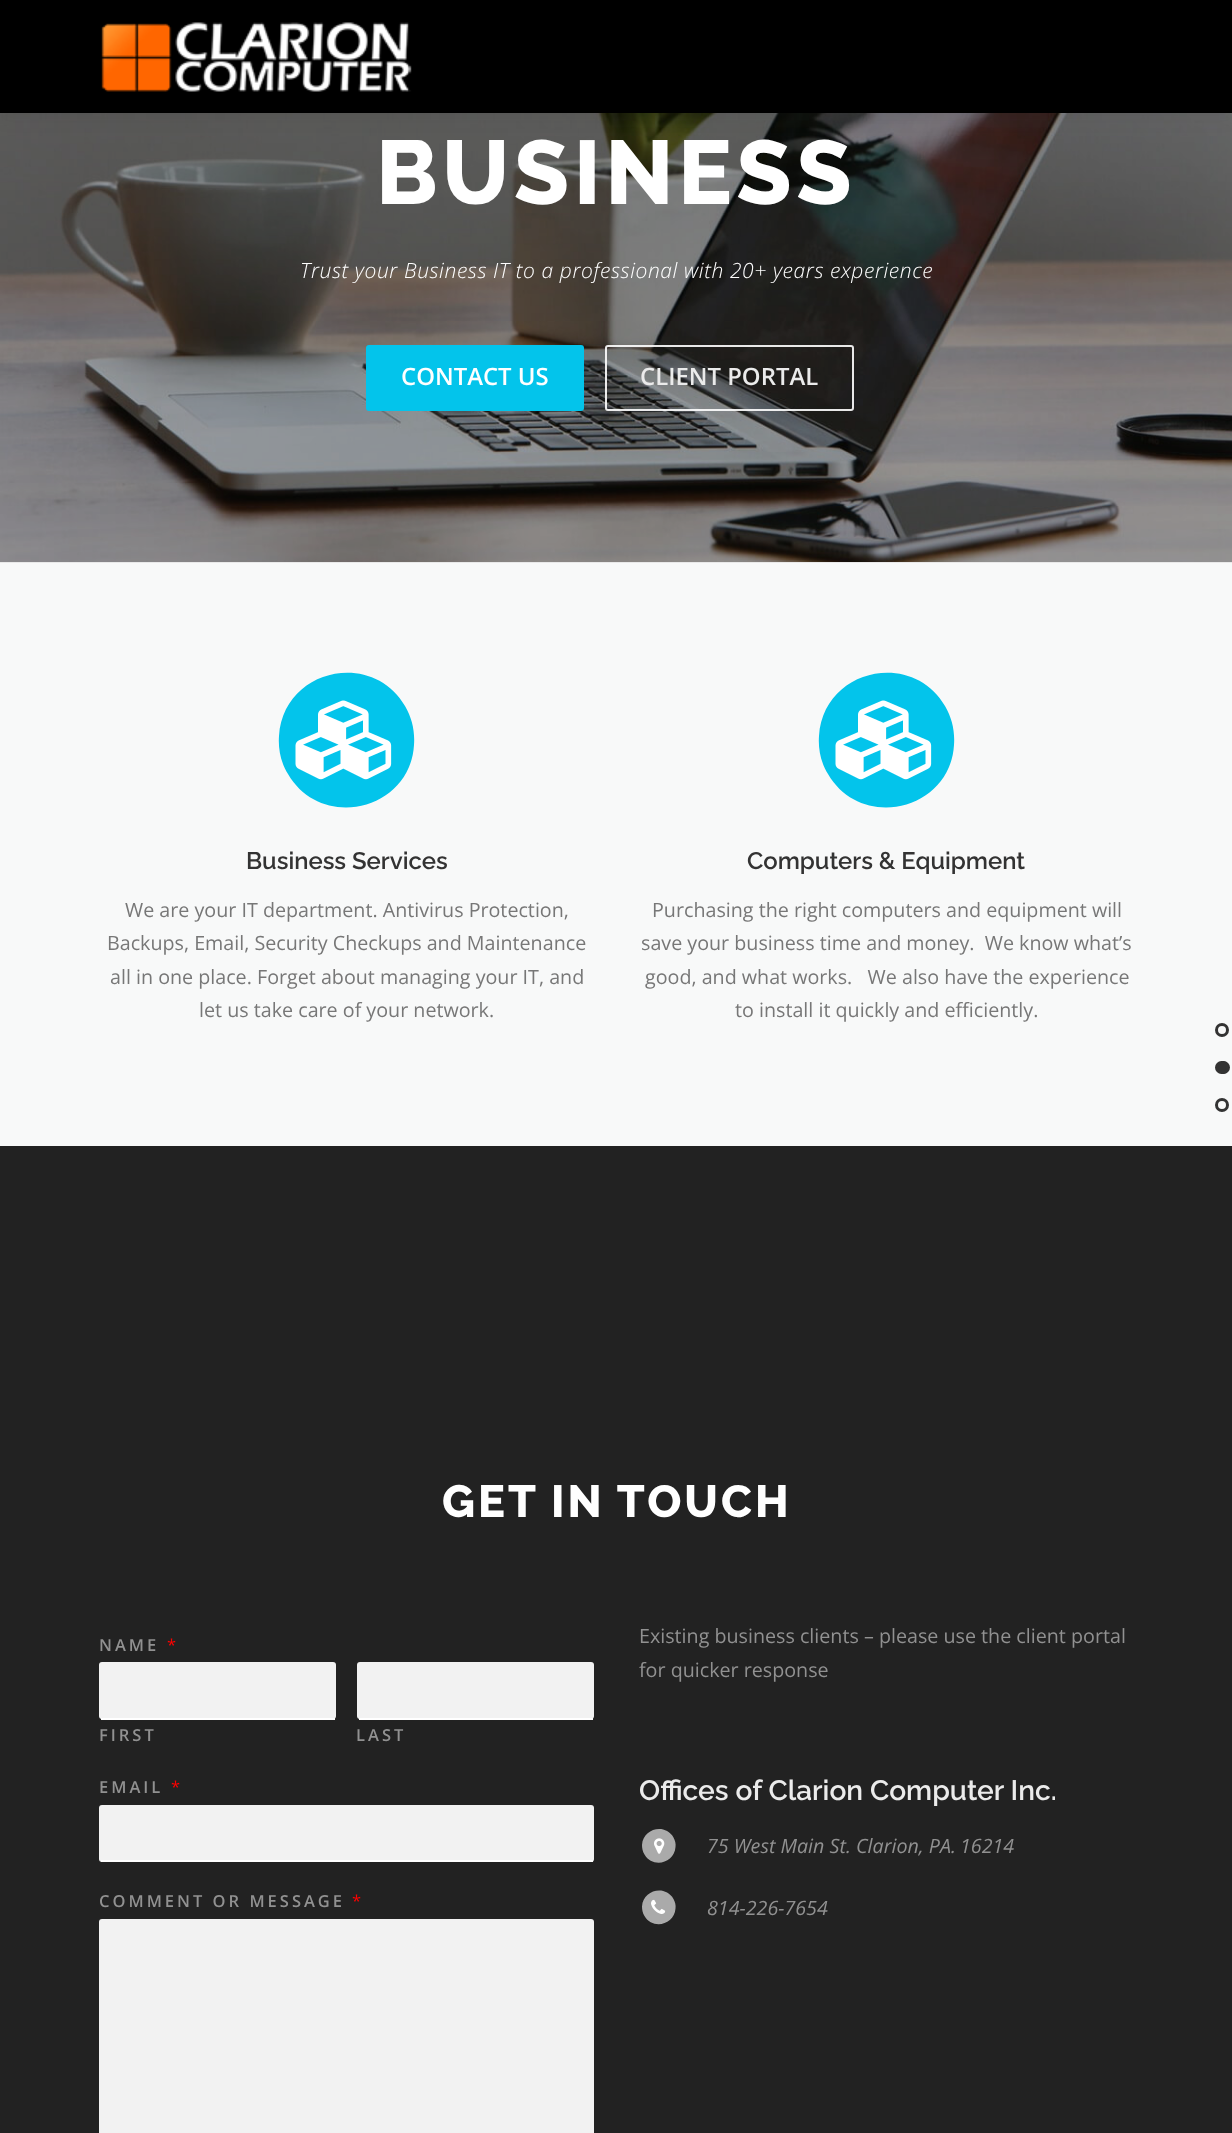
<svg xmlns="http://www.w3.org/2000/svg" width="1232" height="2133">
	<rect width="100%" height="100%" fill="#E9E9E9" />
	<image x="0" y="113" width="1232" height="449" href="assets/img2.png" />
	<rect x="0" y="8" width="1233" height="112" fill="#323232" fill-opacity="0.06" filter="blur(7.5px)" />
	<rect x="0" y="0" width="1232" height="113" fill="#000000" />
	<image x="101" y="22" width="311" height="70" href="assets/img1.png" />
	<text x="376" y="204" font-family="Raleway" font-size="90" font-weight="800" letter-spacing="4.5" fill="#FFFFFF">BUSINESS</text>
	<text x="300" y="278" font-family="Open Sans" font-size="21" font-weight="300" font-style="italic" letter-spacing="0.6" fill="#FFFFFF">Trust your Business IT to a professional with 20+ years experience</text>
	<rect x="366" y="345" width="218" height="66" rx="3" fill="#03C4EB" />
	<text x="401" y="385" font-family="Open Sans" font-size="23.9" font-weight="600" fill="#FFFFFF">CONTACT US</text>
	<rect x="606" y="346" width="247" height="64" rx="2" fill="none" stroke="#FFFFFF" stroke-opacity="0.9" stroke-width="2" />
	<text x="640" y="385" font-family="Open Sans" font-size="23.9" font-weight="600" fill="#EBEBEB">CLIENT PORTAL</text>
	<rect x="0" y="563" width="1232" height="583" fill="#F8F9F9" />
	<path d="M405 706C412 718 415 731 414 745C410 811 321 831 288 774C281 763 278 749 279 736C283 669 372 649 405 706Z" fill="#03C4EB" />
	<image x="295" y="700" width="97" height="80" href="assets/img3.png" />
	<text x="246" y="869" font-family="Raleway" font-size="23.9" font-weight="600" fill="#333333">Business Services</text>
	<g font-family="Open Sans" font-size="19.7" fill="#777777">
		<text x="125" y="917">We are your IT department. Antivirus Protection,</text>
		<text x="107" y="950">Backups, Email, Security Checkups and Maintenance</text>
		<text x="110" y="984">all in one place. Forget about managing your IT, and</text>
		<text x="199" y="1017">let us take care of your network.</text>
	</g>
	<path d="M945 706C952 718 955 731 954 745C950 811 861 831 828 774C821 763 818 749 819 736C823 669 912 649 945 706Z" fill="#03C4EB" />
	<image x="835" y="700" width="97" height="80" href="assets/img3.png" />
	<text x="747" y="869" font-family="Raleway" font-size="23.9" font-weight="600" fill="#333333">Computers &amp; Equipment</text>
	<g font-family="Open Sans" font-size="19.7" fill="#777777">
		<text x="652" y="917">Purchasing the right computers and equipment will</text>
		<text x="641" y="950" xml:space="preserve">save your business time and money.  We know what’s</text>
		<text x="645" y="984" xml:space="preserve">good, and what works.   We also have the experience</text>
		<text x="735" y="1017">to install it quickly and efficiently.</text>
	</g>
	<rect x="0" y="1146" width="1232" height="987" fill="#222222" />
	<text x="442" y="1517" font-family="Raleway" font-size="45" font-weight="800" letter-spacing="3" fill="#FFFFFF">GET IN TOUCH</text>
	<text x="99" y="1651" font-family="Open Sans" font-size="16.5" font-weight="600" letter-spacing="3" fill="#919191">NAME</text>
	<text x="167" y="1651" font-family="Open Sans" font-size="16.5" fill="#FF0000">*</text>
	<rect x="99" y="1662" width="237" height="57" rx="3" fill="#F2F2F2" />
	<rect x="101" y="1718" width="234" height="2" fill="#FFFFFF" />
	<text x="99" y="1741" font-family="Open Sans" font-size="16.5" font-weight="600" letter-spacing="3" fill="#919191">FIRST</text>
	<rect x="357" y="1662" width="237" height="57" rx="3" fill="#F2F2F2" />
	<rect x="359" y="1718" width="234" height="2" fill="#FFFFFF" />
	<g font-family="Open Sans" font-size="16.5" font-weight="600" letter-spacing="3" fill="#919191">
		<text x="356" y="1741">LAST</text>
		<text x="99" y="1793">EMAIL</text>
	</g>
	<text x="171" y="1793" font-family="Open Sans" font-size="16.5" fill="#FF0000">*</text>
	<rect x="99" y="1805" width="495" height="57" rx="3" fill="#F2F2F2" />
	<rect x="101" y="1860" width="492" height="2" fill="#FFFFFF" />
	<text x="99" y="1907" font-family="Open Sans" font-size="16.5" font-weight="600" letter-spacing="3" fill="#919191">COMMENT OR MESSAGE</text>
	<text x="352" y="1907" font-family="Open Sans" font-size="16.5" fill="#FF0000">*</text>
	<rect x="99" y="1919" width="495" height="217" rx="3" fill="#F2F2F2" />
	<g font-family="Open Sans" font-size="19.7" fill="#919191">
		<text x="639" y="1643">Existing business clients – please use the client portal</text>
		<text x="639" y="1677">for quicker response</text>
	</g>
	<text x="639" y="1800" font-family="Raleway" font-size="28.1" font-weight="600" fill="#EBEBEB">Offices of Clarion Computer Inc.</text>
	<path d="M673.5 1837.5C675 1840.5 676 1843.5 675.5 1847C674.5 1863.5 652.5 1868.5 644.5 1854.5C642.5 1851.5 642 1848 642 1845C643 1828.5 665 1823 673.5 1837.5Z" fill="#AAAAAA" />
	<image x="654" y="1838" width="11" height="16" href="assets/img4.png" />
	<g font-family="Open Sans" font-size="19.7" font-style="italic" fill="#919191">
		<text x="707" y="1853">75 West Main St. Clarion, PA.</text>
		<text x="960" y="1853">16214</text>
	</g>
	<path d="M673.5 1899C675 1902 676 1905 675.5 1908.5C674.5 1925 652.5 1930 644.5 1916C642.5 1913 642 1909.5 642 1906.5C643 1890 665 1884.5 673.5 1899Z" fill="#AAAAAA" />
	<image x="651" y="1899" width="15" height="15" href="assets/img5.png" />
	<text x="707" y="1915" font-family="Open Sans" font-size="19.7" font-style="italic" fill="#919191">814-226-7654</text>
	<circle cx="1222" cy="1030" r="5.5" fill="none" stroke="#333333" stroke-width="3" />
	<circle cx="1223.5" cy="1067.5" r="6.5" fill="#333333" />
	<rect x="1216.5" y="1062.5" width="11" height="10" rx="5" fill="none" stroke="#333333" stroke-width="3" />
	<circle cx="1222" cy="1105" r="5.5" fill="none" stroke="#333333" stroke-width="3" />
</svg>
